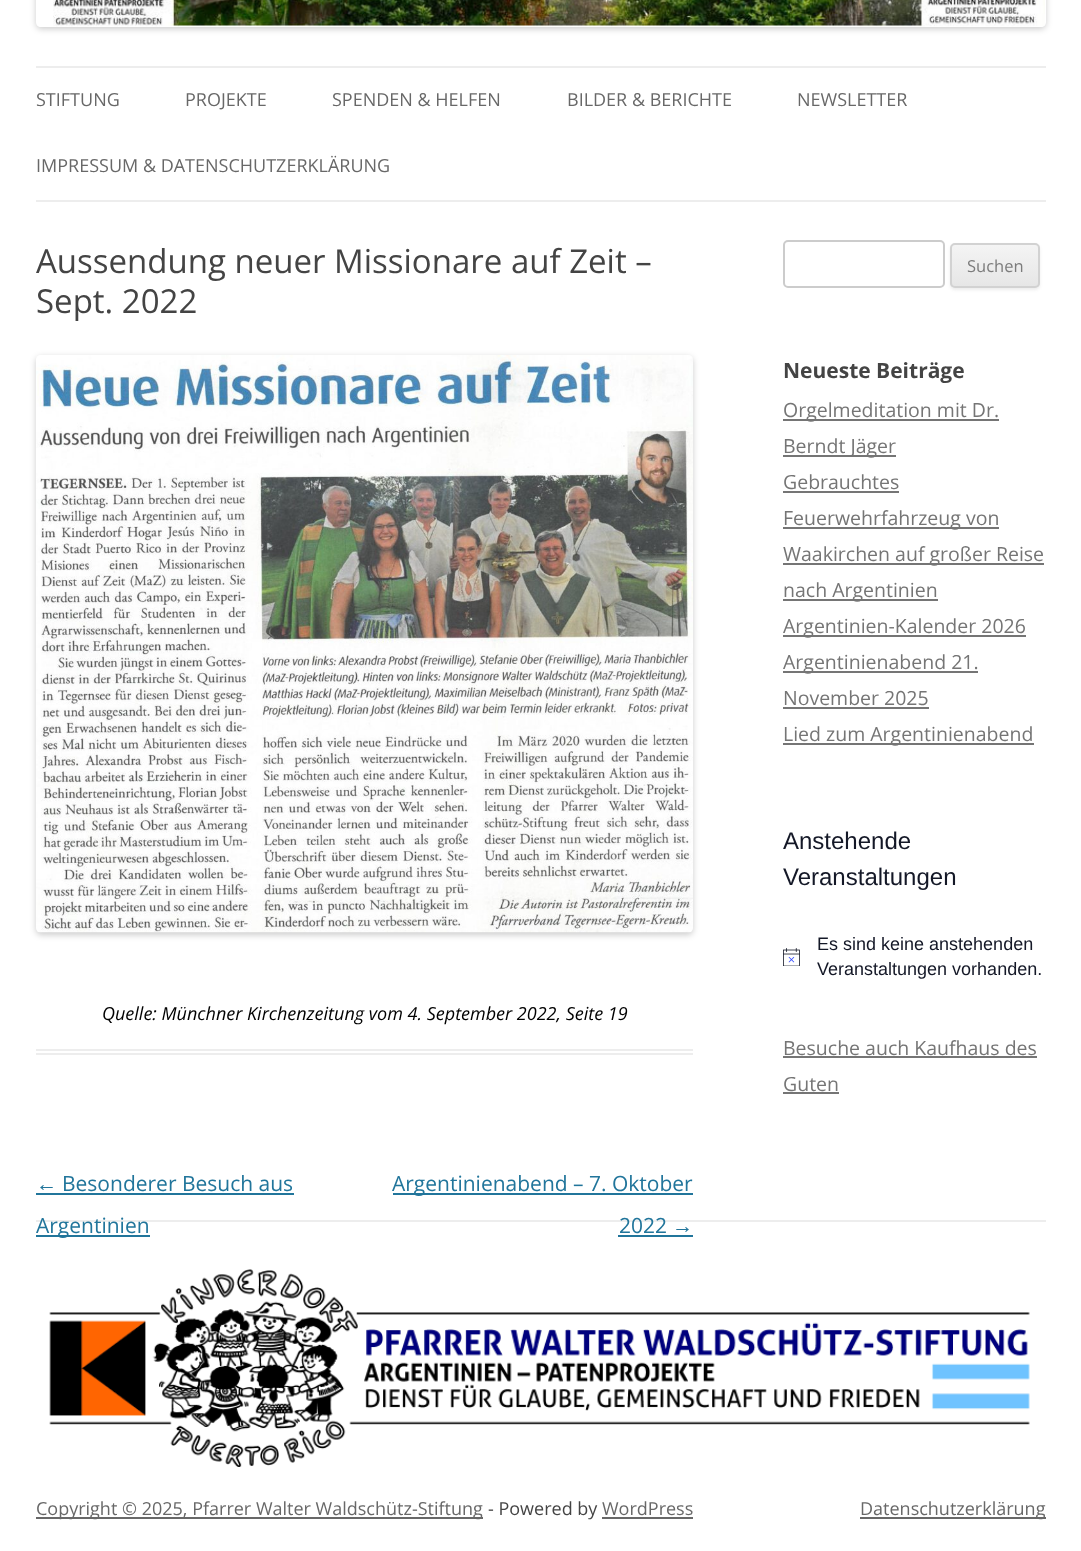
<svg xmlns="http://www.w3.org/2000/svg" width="1081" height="1551">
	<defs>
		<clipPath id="clip1"><path d="M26 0H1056V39H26ZM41-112H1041C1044-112 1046-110 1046-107V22C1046 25 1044 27 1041 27H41C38 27 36 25 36 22V-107C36-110 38-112 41-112Z" clip-rule="evenodd" /></clipPath>
		<clipPath id="clip2"><rect x="950" y="243" width="90" height="45" rx="5" /></clipPath>
		<linearGradient id="g1" gradientUnits="userSpaceOnUse" x1="995" y1="245" x2="995" y2="287"><stop offset="0" stop-color="#F4F4F4" /><stop offset="1" stop-color="#E6E6E6" /></linearGradient>
	</defs>
	<rect width="100%" height="100%" fill="#FFFFFF" />
	<g clip-path="url(#clip1)">
		<rect x="36" y="-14" width="1010" height="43" rx="5" fill="#000000" fill-opacity="0.2" filter="blur(3px)" />
	</g>
	<image x="53" y="0" width="992" height="27" href="assets/img1.png" />
	<rect x="36" y="66" width="1010" height="2" fill="#EDEDED" />
	<rect x="36" y="200" width="1010" height="2" fill="#EDEDED" />
	<g font-family="Open Sans" font-size="18" fill="#686868">
		<text x="36" y="106">STIFTUNG</text>
		<text x="185" y="106">PROJEKTE</text>
		<text x="332" y="106">SPENDEN &amp; HELFEN</text>
		<text x="567" y="106">BILDER &amp; BERICHTE</text>
		<text x="797" y="106">NEWSLETTER</text>
		<text x="36" y="172">IMPRESSUM &amp; DATENSCHUTZERKLÄRUNG</text>
	</g>
	<rect x="36" y="1049" width="657" height="2" fill="#EDEDED" />
	<rect x="36" y="1053" width="657" height="2" fill="#EDEDED" />
	<g font-family="Open Sans" font-size="33" fill="#444444">
		<text x="36" y="273">Aussendung neuer Missionare auf Zeit –</text>
		<text x="36" y="313">Sept. 2022</text>
	</g>
	<rect x="36" y="357" width="657" height="578" rx="5" fill="#000000" fill-opacity="0.2" filter="blur(3px)" />
	<image x="36" y="355" width="657" height="578" href="assets/img2.png" />
	<text x="102" y="1020" font-family="Open Sans" font-size="18" font-style="italic" fill="#000000">Quelle: Münchner Kirchenzeitung vom 4. September 2022, Seite 19</text>
	<text x="36" y="1191" font-family="Liberation Sans" font-size="21" fill="#21759B">←</text>
	<rect x="36" y="1193" width="258" height="2" fill="#21759B" />
	<text x="62" y="1191" font-family="Open Sans" font-size="21" fill="#21759B">Besonderer Besuch aus</text>
	<rect x="36" y="1235" width="114" height="2" fill="#21759B" />
	<rect x="36" y="1220" width="1010" height="2" fill="#EDEDED" />
	<text x="36" y="1233" font-family="Open Sans" font-size="21" fill="#21759B">Argentinien</text>
	<rect x="393" y="1193" width="300" height="2" fill="#21759B" />
	<g font-family="Open Sans" font-size="21" fill="#21759B">
		<text x="392" y="1191">Argentinienabend – 7. Oktober</text>
		<text x="619" y="1233">2022</text>
	</g>
	<text x="672" y="1233" font-family="Liberation Sans" font-size="21" fill="#21759B">→</text>
	<rect x="618" y="1235" width="75" height="2" fill="#21759B" />
	<rect x="784" y="241" width="160" height="46" rx="4" fill="none" stroke="#CCCCCC" stroke-width="2" />
	<rect x="950" y="245" width="90" height="45" rx="5" fill="#404040" fill-opacity="0.1" filter="blur(1.5px)" />
	<g clip-path="url(#clip2)">
		<rect x="950" y="245" width="90" height="42" fill="url(#g1)" />
	</g>
	<rect x="951" y="244" width="88" height="43" rx="4" fill="none" stroke="#D2D2D2" stroke-width="2" />
	<text x="967" y="272" font-family="Open Sans" font-size="16.5" fill="#7C7C7C">Suchen</text>
	<text x="783" y="378" font-family="Open Sans" font-size="21" font-weight="700" fill="#444444">Neueste Beiträge</text>
	<rect x="783" y="419" width="216" height="2" fill="#757575" />
	<text x="783" y="417" font-family="Open Sans" font-size="19.5" fill="#757575">Orgelmeditation mit Dr.</text>
	<rect x="783" y="455" width="113" height="2" fill="#757575" />
	<g font-family="Open Sans" font-size="19.5" fill="#757575">
		<text x="783" y="453">Berndt Jäger</text>
		<text x="783" y="489">Gebrauchtes</text>
	</g>
	<rect x="783" y="491" width="116" height="2" fill="#757575" />
	<rect x="783" y="527" width="216" height="2" fill="#757575" />
	<text x="783" y="525" font-family="Open Sans" font-size="19.5" fill="#757575">Feuerwehrfahrzeug von</text>
	<rect x="783" y="563" width="261" height="2" fill="#757575" />
	<text x="783" y="561" font-family="Open Sans" font-size="19.5" fill="#757575">Waakirchen auf großer Reise</text>
	<rect x="783" y="599" width="155" height="2" fill="#757575" />
	<text x="783" y="597" font-family="Open Sans" font-size="19.5" fill="#757575">nach Argentinien</text>
	<rect x="783" y="635" width="243" height="2" fill="#757575" />
	<text x="783" y="633" font-family="Open Sans" font-size="19.5" fill="#757575">Argentinien-Kalender 2026</text>
	<rect x="783" y="671" width="195" height="2" fill="#757575" />
	<g font-family="Open Sans" font-size="19.5" fill="#757575">
		<text x="783" y="669">Argentinienabend 21.</text>
		<text x="783" y="705">November 2025</text>
	</g>
	<rect x="783" y="707" width="146" height="2" fill="#757575" />
	<rect x="783" y="743" width="251" height="2" fill="#757575" />
	<text x="783" y="741" font-family="Open Sans" font-size="19.5" fill="#757575">Lied zum Argentinienabend</text>
	<g font-family="Liberation Sans" font-size="24" fill="#141827">
		<text x="783" y="849">Anstehende</text>
		<text x="783" y="885">Veranstaltungen</text>
	</g>
	<image x="783" y="948" width="17" height="18" href="assets/img3.png" />
	<g font-family="Liberation Sans" font-size="18" fill="#141827">
		<text x="817" y="950">Es sind keine anstehenden</text>
		<text x="817" y="975">Veranstaltungen vorhanden.</text>
	</g>
	<text x="783" y="1055" font-family="Open Sans" font-size="19.5" fill="#757575">Besuche auch Kaufhaus des</text>
	<rect x="783" y="1056" width="254" height="2" fill="#757575" />
	<text x="783" y="1091" font-family="Open Sans" font-size="19.5" fill="#757575">Guten</text>
	<rect x="783" y="1092" width="56" height="2" fill="#757575" />
	<image x="49" y="1269" width="981" height="198" href="assets/img4.png" />
	<rect x="36" y="1517" width="447" height="2" fill="#686868" />
	<text x="36" y="1515" font-family="Open Sans" font-size="18" fill="#686868">Copyright © 2025, Pfarrer Walter Waldschütz-Stiftung</text>
	<text x="488" y="1515" font-family="Open Sans" font-size="18" fill="#444444">- Powered by</text>
	<text x="602" y="1515" font-family="Open Sans" font-size="18" fill="#686868">WordPress</text>
	<rect x="602" y="1517" width="91" height="2" fill="#686868" />
	<rect x="860" y="1517" width="186" height="2" fill="#686868" />
	<text x="860" y="1515" font-family="Open Sans" font-size="18" fill="#686868">Datenschutzerklärung</text>
</svg>
